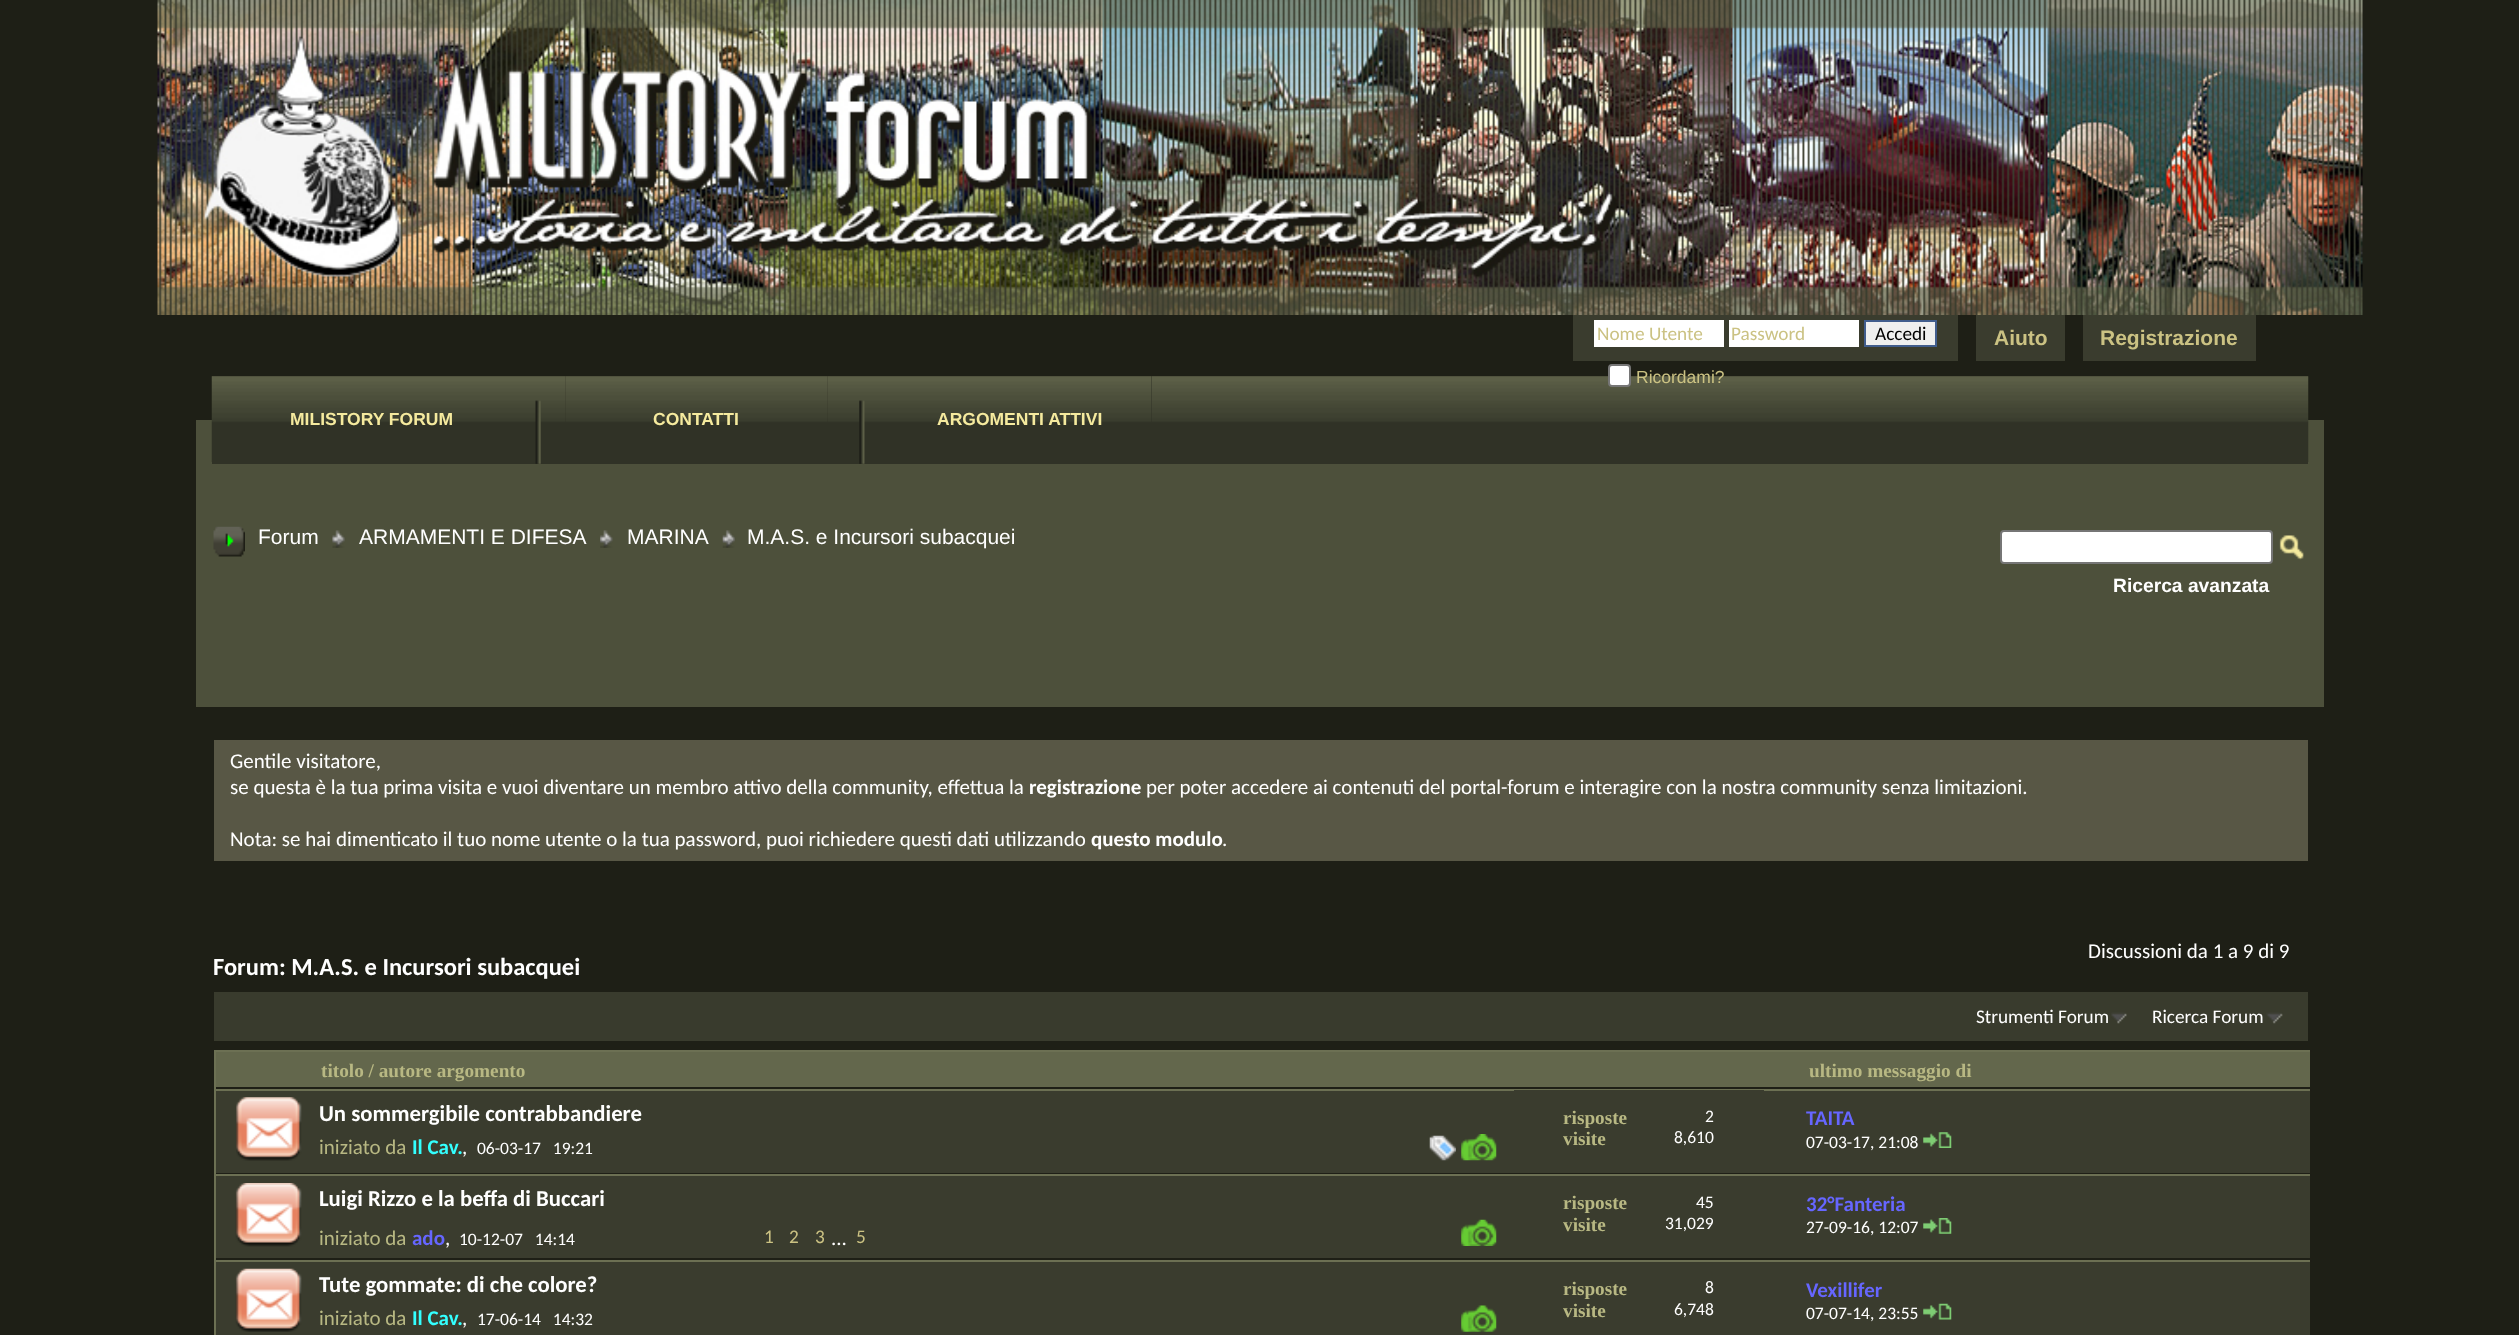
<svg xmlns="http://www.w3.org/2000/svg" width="2519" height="1335">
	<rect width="100%" height="100%" fill="#1E1F16" />
	<image x="157" y="0" width="2206" height="315" href="assets/img1.png" />
	<rect x="1573" y="315" width="385" height="46" fill="#3A3C2E" />
	<rect x="1594" y="320" width="130" height="27" fill="#FFFFFF" />
	<text x="1597" y="340" font-family="Carlito" font-size="19.25" fill="#CBC283">Nome Utente</text>
	<rect x="1729" y="320" width="130" height="27" fill="#FFFFFF" />
	<text x="1731" y="340" font-family="Carlito" font-size="19.25" fill="#CBC283">Password</text>
	<rect x="1865" y="321" width="71" height="25" fill="#EFEFEF" stroke="#415D8D" stroke-width="2" />
	<text x="1875" y="340" font-family="Carlito" font-size="19.25" fill="#000000">Accedi</text>
	<rect x="196" y="420" width="2128" height="287" fill="#4D503B" />
	<rect x="212" y="376" width="2096" height="88" fill="#303226" />
	<image x="211" y="376" width="2098" height="86" href="assets/img2.png" />
	<rect x="1609" y="365" width="21" height="21" rx="3" fill="#FFFFFF" stroke="#767676" stroke-width="2" />
	<text x="1636" y="383" font-family="Liberation Sans" font-size="17.5" fill="#CBC283">Ricordami?</text>
	<rect x="1976" y="315" width="89" height="46" fill="#3A3C2E" />
	<text x="1994" y="345" font-family="Liberation Sans" font-size="21" font-weight="700" fill="#CBC283">Aiuto</text>
	<rect x="2083" y="315" width="173" height="46" fill="#3A3C2E" />
	<text x="2100" y="345" font-family="Liberation Sans" font-size="21" font-weight="700" fill="#CBC283">Registrazione</text>
	<rect x="242" y="376" width="262" height="46" fill="#303226" />
	<image x="242" y="376" width="262" height="46" href="assets/img3.png" />
	<text x="290" y="425" font-family="Liberation Sans" font-size="17.5" font-weight="700" fill="#F5EA9E">MILISTORY FORUM</text>
	<image x="535" y="400" width="6" height="64" href="assets/img4.png" />
	<rect x="565" y="376" width="263" height="46" fill="#303226" />
	<image x="565" y="376" width="263" height="46" href="assets/img5.png" />
	<text x="653" y="425" font-family="Liberation Sans" font-size="17.5" font-weight="700" fill="#F5EA9E">CONTATTI</text>
	<image x="859" y="400" width="6" height="64" href="assets/img6.png" />
	<rect x="889" y="376" width="263" height="46" fill="#303226" />
	<image x="889" y="376" width="263" height="46" href="assets/img7.png" />
	<text x="937" y="425" font-family="Liberation Sans" font-size="17.5" font-weight="700" fill="#F5EA9E">ARGOMENTI ATTIVI</text>
	<image x="213" y="526" width="32" height="31" href="assets/img8.png" />
	<image x="332" y="530" width="13" height="18" href="assets/img9.png" />
	<text x="258" y="544" font-family="Liberation Sans" font-size="21" fill="#FFFFFF">Forum</text>
	<image x="600" y="530" width="13" height="18" href="assets/img10.png" />
	<text x="359" y="544" font-family="Liberation Sans" font-size="21" fill="#FFFFFF">ARMAMENTI E DIFESA</text>
	<image x="722" y="530" width="13" height="18" href="assets/img11.png" />
	<g font-family="Liberation Sans" font-size="21" fill="#FFFFFF">
		<text x="627" y="544">MARINA</text>
		<text x="747" y="544">M.A.S. e Incursori subacquei</text>
	</g>
	<rect x="2001" y="531" width="271" height="32" rx="3" fill="#FFFFFF" stroke="#767676" stroke-width="2" />
	<image x="2279" y="535" width="25" height="25" href="assets/img12.png" />
	<text x="2113" y="592" font-family="Liberation Sans" font-size="19.25" font-weight="700" fill="#FFFFFF">Ricerca avanzata</text>
	<rect x="214" y="740" width="2094" height="121" fill="#585745" />
	<g font-family="Carlito" font-size="21" fill="#FFFFFF">
		<text x="230" y="768">Gentile visitatore,</text>
		<text x="230" y="794">se questa è la tua prima visita e vuoi diventare un membro attivo della community, effettua la</text>
	</g>
	<text x="1029" y="794" font-family="Carlito" font-size="21" font-weight="700" fill="#FFFFFF">registrazione</text>
	<g font-family="Carlito" font-size="21" fill="#FFFFFF">
		<text x="1146" y="794">per poter accedere ai contenuti del portal-forum e interagire con la nostra community senza limitazioni.</text>
		<text x="230" y="846">Nota: se hai dimenticato il tuo nome utente o la tua password, puoi richiedere questi dati utilizzando</text>
	</g>
	<text x="1091" y="846" font-family="Carlito" font-size="21" font-weight="700" fill="#FFFFFF">questo modulo</text>
	<g font-family="Carlito" font-size="21" fill="#FFFFFF">
		<text x="1222" y="846">.</text>
		<text x="2088" y="958">Discussioni da 1 a 9 di 9</text>
	</g>
	<text x="213" y="975" font-family="Carlito" font-size="24.5" font-weight="700" fill="#FFFFFF">Forum: M.A.S. e Incursori subacquei</text>
	<rect x="214" y="992" width="2094" height="49" fill="#393B2D" />
	<image x="2111" y="1012" width="16" height="12" href="assets/img13.png" />
	<text x="1976" y="1023" font-family="Carlito" font-size="19.25" fill="#FFFFFF">Strumenti Forum</text>
	<image x="2266" y="1012" width="17" height="12" href="assets/img14.png" />
	<text x="2152" y="1023" font-family="Carlito" font-size="19.25" fill="#FFFFFF">Ricerca Forum</text>
	<rect x="216" y="1052" width="2094" height="35" fill="#63674C" />
	<rect x="214" y="1050" width="2098" height="2" fill="#6C7053" />
	<rect x="2310" y="1050" width="2" height="2" fill="#1E1E16" />
	<rect x="214" y="1050" width="2" height="39" fill="#6C7053" />
	<g font-family="Liberation Serif" font-size="19.25" font-weight="700" fill="#B8B883">
		<text x="321" y="1077">titolo / autore argomento</text>
		<text x="1809" y="1077">ultimo messaggio di</text>
	</g>
	<rect x="216" y="1091" width="2094" height="82" fill="#3A3C2E" />
	<rect x="214" y="1089" width="2098" height="2" fill="#6C7053" />
	<rect x="2310" y="1089" width="2" height="2" fill="#1E1E16" />
	<rect x="214" y="1089" width="2" height="85" fill="#6C7053" />
	<image x="236" y="1097" width="66" height="64" href="assets/img15.png" />
	<text x="319" y="1121" font-family="Carlito" font-size="22.75" font-weight="700" fill="#FFFFFF">Un sommergibile contrabbandiere</text>
	<text x="319" y="1154" font-family="Carlito" font-size="21" fill="#B8B883">iniziato da</text>
	<text x="412" y="1154" font-family="Carlito" font-size="21" font-weight="700" fill="#33FFFF">Il Cav.</text>
	<text x="462" y="1154" font-family="Carlito" font-size="21" fill="#FFFFFF">,</text>
	<text x="477" y="1154" font-family="Carlito" font-size="17.5" fill="#FFFFFF" xml:space="preserve">06-03-17   19:21</text>
	<image x="1429" y="1135" width="27" height="26" href="assets/img16.png" />
	<image x="1461" y="1134" width="36" height="27" href="assets/img17.png" />
	<rect x="1514" y="1090" width="250" height="1" fill="#3A3C2E" />
	<text x="1563" y="1124" font-family="Liberation Serif" font-size="19.25" font-weight="700" fill="#B8B883">risposte</text>
	<text x="1705" y="1122" font-family="Carlito" font-size="17.5" fill="#FFFFFF">2</text>
	<text x="1563" y="1145" font-family="Liberation Serif" font-size="19.25" font-weight="700" fill="#B8B883">visite</text>
	<text x="1674" y="1143" font-family="Carlito" font-size="17.5" fill="#FFFFFF">8,610</text>
	<text x="1806" y="1125" font-family="Carlito" font-size="21" font-weight="700" fill="#6666FF">TAITA</text>
	<text x="1806" y="1148" font-family="Carlito" font-size="17.5" fill="#FFFFFF">07-03-17, 21:08</text>
	<image x="1923" y="1132" width="29" height="16" href="assets/img18.png" />
	<rect x="216" y="1176" width="2094" height="82" fill="#3A3C2E" />
	<rect x="214" y="1174" width="2098" height="2" fill="#6C7053" />
	<rect x="2310" y="1174" width="2" height="2" fill="#1E1E16" />
	<rect x="214" y="1174" width="2" height="86" fill="#6C7053" />
	<image x="235" y="1183" width="67" height="64" href="assets/img19.png" />
	<text x="319" y="1206" font-family="Carlito" font-size="22.75" font-weight="700" fill="#FFFFFF">Luigi Rizzo e la beffa di Buccari</text>
	<text x="319" y="1245" font-family="Carlito" font-size="21" fill="#B8B883">iniziato da</text>
	<text x="412" y="1245" font-family="Carlito" font-size="21" font-weight="700" fill="#6666FF">ado</text>
	<text x="445" y="1245" font-family="Carlito" font-size="21" fill="#FFFFFF">,</text>
	<text x="459" y="1245" font-family="Carlito" font-size="17.5" fill="#FFFFFF" xml:space="preserve">10-12-07   14:14</text>
	<g font-family="Carlito" font-size="19.25" fill="#CBC283">
		<text x="764" y="1243">1</text>
		<text x="789" y="1243">2</text>
		<text x="815" y="1243">3</text>
	</g>
	<text x="831" y="1245" font-family="Carlito" font-size="21" fill="#FFFFFF">...</text>
	<text x="856" y="1243" font-family="Carlito" font-size="19.25" fill="#CBC283">5</text>
	<image x="1461" y="1219" width="36" height="27" href="assets/img20.png" />
	<text x="1563" y="1209" font-family="Liberation Serif" font-size="19.25" font-weight="700" fill="#B8B883">risposte</text>
	<text x="1696" y="1208" font-family="Carlito" font-size="17.5" fill="#FFFFFF">45</text>
	<text x="1563" y="1231" font-family="Liberation Serif" font-size="19.25" font-weight="700" fill="#B8B883">visite</text>
	<text x="1665" y="1229" font-family="Carlito" font-size="17.5" fill="#FFFFFF">31,029</text>
	<text x="1806" y="1211" font-family="Carlito" font-size="21" font-weight="700" fill="#6666FF">32°Fanteria</text>
	<text x="1806" y="1233" font-family="Carlito" font-size="17.5" fill="#FFFFFF">27-09-16, 12:07</text>
	<image x="1923" y="1218" width="29" height="16" href="assets/img21.png" />
	<rect x="216" y="1262" width="2094" height="73" fill="#3A3C2E" />
	<rect x="214" y="1260" width="2098" height="2" fill="#6C7053" />
	<rect x="2310" y="1260" width="2" height="2" fill="#1E1E16" />
	<rect x="214" y="1260" width="2" height="75" fill="#6C7053" />
	<image x="235" y="1268" width="67" height="64" href="assets/img22.png" />
	<text x="319" y="1292" font-family="Carlito" font-size="22.75" font-weight="700" fill="#FFFFFF">Tute gommate: di che colore?</text>
	<text x="319" y="1325" font-family="Carlito" font-size="21" fill="#B8B883">iniziato da</text>
	<text x="412" y="1325" font-family="Carlito" font-size="21" font-weight="700" fill="#33FFFF">Il Cav.</text>
	<text x="462" y="1325" font-family="Carlito" font-size="21" fill="#FFFFFF">,</text>
	<text x="477" y="1325" font-family="Carlito" font-size="17.5" fill="#FFFFFF" xml:space="preserve">17-06-14   14:32</text>
	<image x="1461" y="1305" width="36" height="27" href="assets/img23.png" />
	<text x="1563" y="1295" font-family="Liberation Serif" font-size="19.25" font-weight="700" fill="#B8B883">risposte</text>
	<text x="1705" y="1293" font-family="Carlito" font-size="17.5" fill="#FFFFFF">8</text>
	<text x="1563" y="1317" font-family="Liberation Serif" font-size="19.25" font-weight="700" fill="#B8B883">visite</text>
	<text x="1674" y="1315" font-family="Carlito" font-size="17.5" fill="#FFFFFF">6,748</text>
	<text x="1806" y="1297" font-family="Carlito" font-size="21" font-weight="700" fill="#6666FF">Vexillifer</text>
	<text x="1806" y="1319" font-family="Carlito" font-size="17.5" fill="#FFFFFF">07-07-14, 23:55</text>
	<image x="1923" y="1303" width="29" height="17" href="assets/img24.png" />
</svg>
